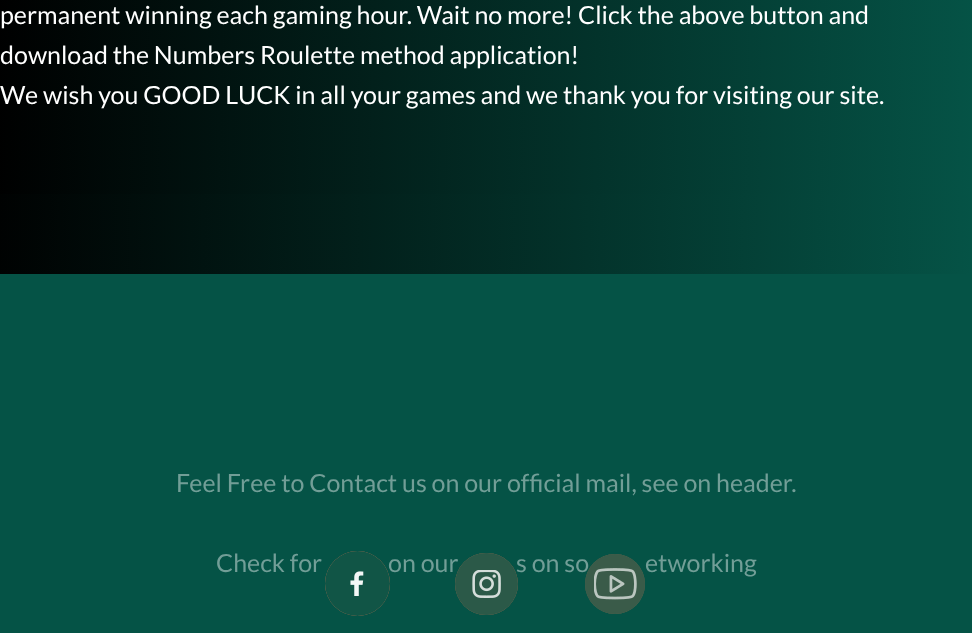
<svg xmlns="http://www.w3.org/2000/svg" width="972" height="633">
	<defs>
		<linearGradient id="g1" gradientUnits="userSpaceOnUse" x1="-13" y1="-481" x2="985" y2="-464"><stop offset="0" stop-color="#000000" /><stop offset="1" stop-color="#055346" /></linearGradient>
		<linearGradient id="g2" gradientUnits="userSpaceOnUse" x1="-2.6" y1="25" x2="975" y2="42"><stop offset="0" stop-color="#000000" /><stop offset="1" stop-color="#055346" /></linearGradient>
	</defs>
	<rect width="100%" height="100%" fill="#FFFFFF" />
	<rect x="0" y="194" width="972" height="80" fill="url(#g1)" />
	<rect x="0" y="0" width="972" height="194" fill="url(#g2)" />
	<g font-family="Lato" font-size="25" fill="#FFFFFF">
		<text x="0" y="24">permanent winning each gaming hour. Wait no more! Click the above button and</text>
		<text x="0" y="64">download the Numbers Roulette method application!</text>
		<text x="0" y="104">We wish you GOOD LUCK in all your games and we thank you for visiting our site.</text>
	</g>
	<rect x="0" y="274" width="972" height="359" fill="#055346" />
	<g font-family="Lato" font-size="25" fill="#729E97">
		<text x="176" y="492">Feel Free to Contact us on our official mail, see on header.</text>
		<text x="216" y="572">Check for</text>
		<text x="388" y="572">on our</text>
		<text x="516" y="572">s on so</text>
		<text x="645" y="572">etworking</text>
	</g>
	<circle cx="357.5" cy="583.5" r="32.5" fill="#EF7A54" fill-opacity="0.95" />
	<circle cx="357.5" cy="583.5" r="32.5" fill="#055346" fill-opacity="0.95" />
	<image x="350" y="571" width="14" height="25" href="assets/img1.png" />
	<rect x="455" y="553" width="63" height="62" rx="31" fill="#EF7A54" fill-opacity="0.8" />
	<rect x="455" y="553" width="63" height="62" rx="31" fill="#055346" fill-opacity="0.8" />
	<image x="472" y="570" width="29" height="28" href="assets/img2.png" />
	<circle cx="615" cy="584" r="30" fill="#EF7A54" fill-opacity="0.65" />
	<circle cx="615" cy="584" r="30" fill="#055346" fill-opacity="0.65" />
	<image x="594" y="568" width="43" height="32" href="assets/img3.png" />
</svg>
